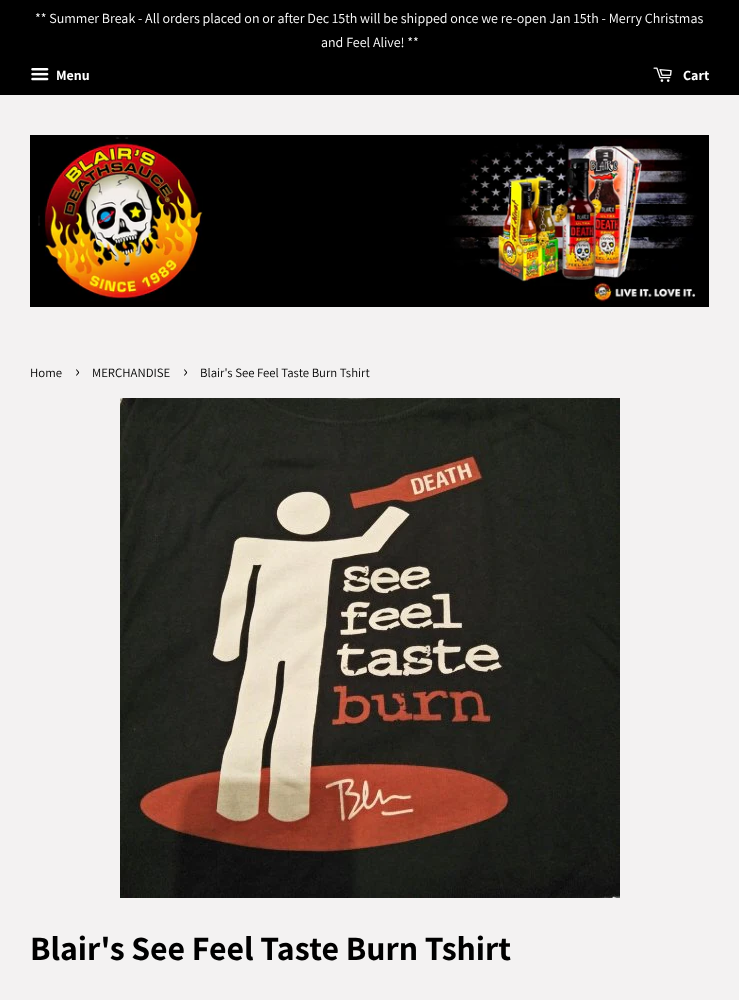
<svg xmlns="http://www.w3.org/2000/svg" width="739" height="1000">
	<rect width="100%" height="100%" fill="#F3F2F2" />
	<rect x="0" y="0" width="739" height="95" fill="#000000" />
	<g font-family="Assistant" font-size="14" fill="#FFFFFF">
		<text x="35" y="23">** Summer Break - All orders placed on or after Dec 15th will be shipped once we re-open Jan 15th - Merry Christmas</text>
		<text x="321" y="47">and Feel Alive! **</text>
	</g>
	<image x="31" y="68" width="18" height="13" href="assets/img1.png" />
	<text x="56" y="80" font-family="Assistant" font-size="14" font-weight="700" fill="#FFFFFF">Menu</text>
	<image x="653" y="67" width="19" height="15" href="assets/img2.png" />
	<text x="683" y="80" font-family="Assistant" font-size="14" font-weight="700" fill="#FFFFFF">Cart</text>
	<image x="30" y="135" width="679" height="172" href="assets/img3.png" />
	<text x="30" y="377" font-family="Assistant" font-size="12.75" fill="#000000">Home</text>
	<text x="75" y="377" font-family="Assistant" font-size="18" fill="#000000">›</text>
	<text x="92" y="377" font-family="Assistant" font-size="12.75" fill="#000000">MERCHANDISE</text>
	<text x="183" y="377" font-family="Assistant" font-size="18" fill="#000000">›</text>
	<text x="200" y="377" font-family="Assistant" font-size="12.75" fill="#000000">Blair's See Feel Taste Burn Tshirt</text>
	<image x="120" y="398" width="500" height="500" href="assets/img4.png" />
	<text x="30" y="960" font-family="Assistant" font-size="34" font-weight="700" fill="#000000">Blair's See Feel Taste Burn Tshirt</text>
</svg>
